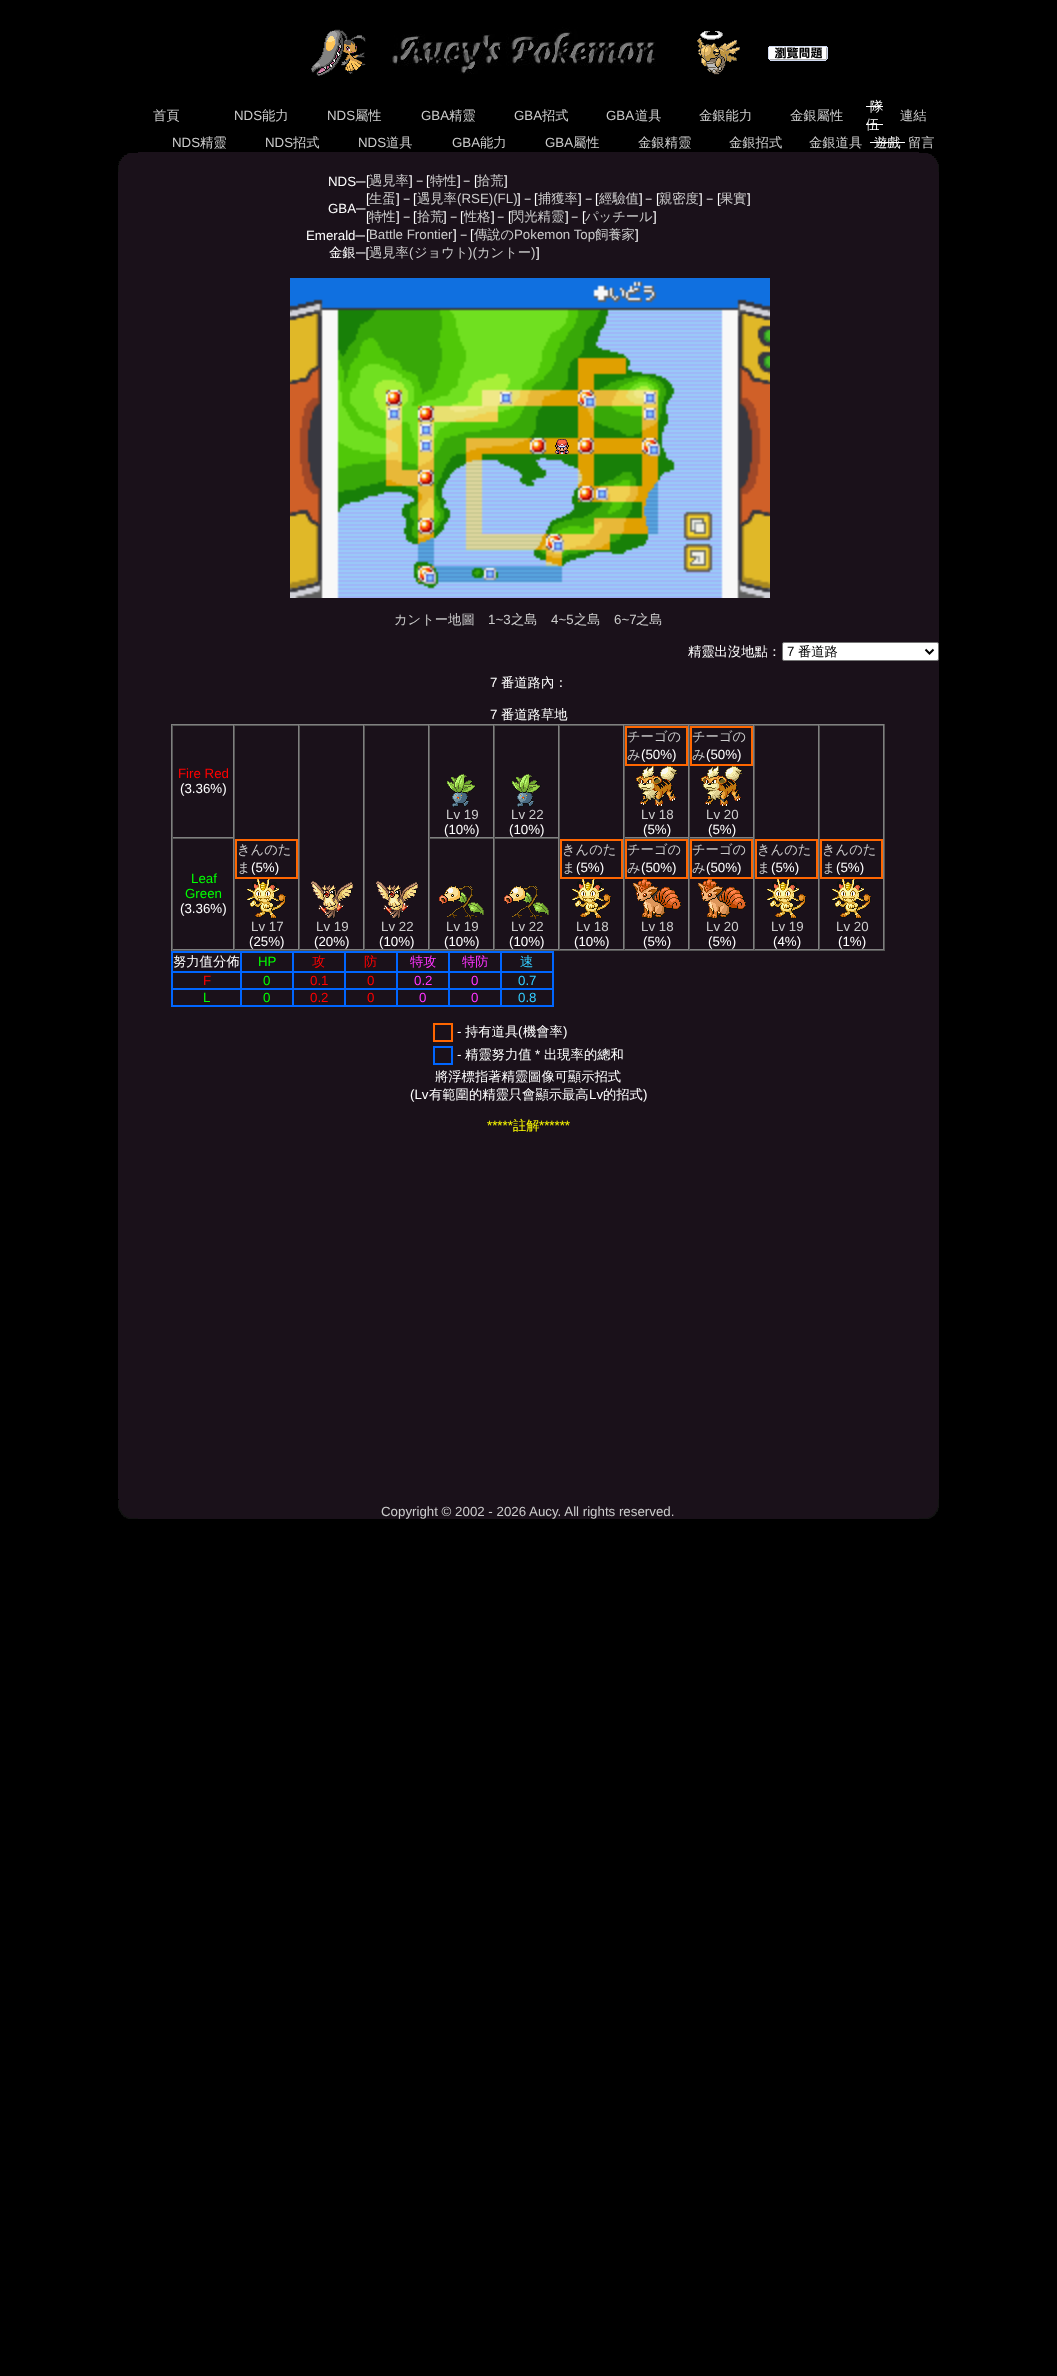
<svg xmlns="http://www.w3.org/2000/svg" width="1057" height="2376">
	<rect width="100%" height="100%" fill="#000000" />
	<image x="311" y="29" width="55" height="47" href="assets/img1.png" />
	<image x="390" y="27" width="266" height="47" href="assets/img2.png" />
	<image x="697" y="31" width="43" height="44" href="assets/img3.png" />
	<image x="768" y="46" width="60" height="15" href="assets/img4.png" />
	<text x="153" y="120" font-family="WenQuanYi Zen Hei" font-size="13.3" font-weight="500" fill="#CCCCCC">首頁</text>
	<text x="234" y="120" font-family="Liberation Sans" font-size="13.3" fill="#CCCCCC">NDS</text>
	<text x="262" y="120" font-family="WenQuanYi Zen Hei" font-size="13.3" font-weight="500" fill="#CCCCCC">能力</text>
	<text x="327" y="120" font-family="Liberation Sans" font-size="13.3" fill="#CCCCCC">NDS</text>
	<text x="355" y="120" font-family="WenQuanYi Zen Hei" font-size="13.3" font-weight="500" fill="#CCCCCC">屬性</text>
	<text x="421" y="120" font-family="Liberation Sans" font-size="13.3" fill="#CCCCCC">GBA</text>
	<text x="449" y="120" font-family="WenQuanYi Zen Hei" font-size="13.3" font-weight="500" fill="#CCCCCC">精靈</text>
	<text x="514" y="120" font-family="Liberation Sans" font-size="13.3" fill="#CCCCCC">GBA</text>
	<text x="542" y="120" font-family="WenQuanYi Zen Hei" font-size="13.3" font-weight="500" fill="#CCCCCC">招式</text>
	<text x="606" y="120" font-family="Liberation Sans" font-size="13.3" fill="#CCCCCC">GBA</text>
	<g font-family="WenQuanYi Zen Hei" font-size="13.3" font-weight="500" fill="#CCCCCC">
		<text x="635" y="120">道具</text>
		<text x="699" y="120">金銀能力</text>
		<text x="790" y="120">金銀屬性</text>
	</g>
	<text x="870" y="111" font-family="WenQuanYi Zen Hei" font-size="13.3" font-weight="500" fill="#FFFFFF">隊</text>
	<rect x="866" y="106" width="17" height="1" fill="#FFFFFF" />
	<text x="866" y="129" font-family="WenQuanYi Zen Hei" font-size="13.3" font-weight="500" fill="#FFFFFF">伍</text>
	<rect x="866" y="124" width="17" height="1" fill="#FFFFFF" />
	<text x="900" y="120" font-family="WenQuanYi Zen Hei" font-size="13.3" font-weight="500" fill="#CCCCCC">連結</text>
	<text x="172" y="147" font-family="Liberation Sans" font-size="13.3" fill="#CCCCCC">NDS</text>
	<text x="200" y="147" font-family="WenQuanYi Zen Hei" font-size="13.3" font-weight="500" fill="#CCCCCC">精靈</text>
	<text x="265" y="147" font-family="Liberation Sans" font-size="13.3" fill="#CCCCCC">NDS</text>
	<text x="293" y="147" font-family="WenQuanYi Zen Hei" font-size="13.3" font-weight="500" fill="#CCCCCC">招式</text>
	<text x="358" y="147" font-family="Liberation Sans" font-size="13.3" fill="#CCCCCC">NDS</text>
	<text x="386" y="147" font-family="WenQuanYi Zen Hei" font-size="13.3" font-weight="500" fill="#CCCCCC">道具</text>
	<text x="452" y="147" font-family="Liberation Sans" font-size="13.3" fill="#CCCCCC">GBA</text>
	<text x="480" y="147" font-family="WenQuanYi Zen Hei" font-size="13.3" font-weight="500" fill="#CCCCCC">能力</text>
	<text x="545" y="147" font-family="Liberation Sans" font-size="13.3" fill="#CCCCCC">GBA</text>
	<g font-family="WenQuanYi Zen Hei" font-size="13.3" font-weight="500" fill="#CCCCCC">
		<text x="573" y="147">屬性</text>
		<text x="638" y="147">金銀精靈</text>
		<text x="729" y="147">金銀招式</text>
		<text x="809" y="147">金銀道具</text>
	</g>
	<text x="874" y="147" font-family="WenQuanYi Zen Hei" font-size="13.3" font-weight="500" fill="#FFFFFF">遊戲</text>
	<rect x="870" y="142" width="35" height="1" fill="#FFFFFF" />
	<text x="908" y="147" font-family="WenQuanYi Zen Hei" font-size="13.3" font-weight="500" fill="#CCCCCC">留言</text>
	<rect x="118" y="152" width="821" height="1367" fill="#1A111A" />
	<image x="118" y="152" width="20" height="20" href="assets/img5.png" />
	<image x="919" y="152" width="20" height="20" href="assets/img6.png" />
	<g font-family="Liberation Sans" font-size="13.3" fill="#FFFFFF">
		<text x="328" y="186">NDS─</text>
		<text x="366" y="185">[</text>
	</g>
	<text x="369" y="185" font-family="WenQuanYi Zen Hei" font-size="13.3" font-weight="500" fill="#CCCCCC">遇見率</text>
	<text x="409" y="185" font-family="Liberation Sans" font-size="13.3" fill="#FFFFFF">]</text>
	<text x="413" y="185" font-family="WenQuanYi Zen Hei" font-size="13.3" font-weight="500" fill="#FFFFFF">－</text>
	<text x="426" y="185" font-family="Liberation Sans" font-size="13.3" fill="#FFFFFF">[</text>
	<text x="430" y="185" font-family="WenQuanYi Zen Hei" font-size="13.3" font-weight="500" fill="#CCCCCC">特性</text>
	<text x="457" y="185" font-family="Liberation Sans" font-size="13.3" fill="#FFFFFF">]</text>
	<text x="460" y="185" font-family="WenQuanYi Zen Hei" font-size="13.3" font-weight="500" fill="#FFFFFF">－</text>
	<text x="474" y="185" font-family="Liberation Sans" font-size="13.3" fill="#FFFFFF">[</text>
	<text x="477" y="185" font-family="WenQuanYi Zen Hei" font-size="13.3" font-weight="500" fill="#CCCCCC">拾荒</text>
	<g font-family="Liberation Sans" font-size="13.3" fill="#FFFFFF">
		<text x="504" y="185">]</text>
		<text x="366" y="203">[</text>
	</g>
	<text x="369" y="203" font-family="WenQuanYi Zen Hei" font-size="13.3" font-weight="500" fill="#CCCCCC">生蛋</text>
	<text x="396" y="203" font-family="Liberation Sans" font-size="13.3" fill="#FFFFFF">]</text>
	<text x="400" y="203" font-family="WenQuanYi Zen Hei" font-size="13.3" font-weight="500" fill="#FFFFFF">－</text>
	<text x="413" y="203" font-family="Liberation Sans" font-size="13.3" fill="#FFFFFF">[</text>
	<text x="417" y="203" font-family="WenQuanYi Zen Hei" font-size="13.3" font-weight="500" fill="#CCCCCC">遇見率</text>
	<text x="457" y="203" font-family="Liberation Sans" font-size="13.3" fill="#CCCCCC">(RSE)(FL)</text>
	<text x="517" y="203" font-family="Liberation Sans" font-size="13.3" fill="#FFFFFF">]</text>
	<text x="521" y="203" font-family="WenQuanYi Zen Hei" font-size="13.3" font-weight="500" fill="#FFFFFF">－</text>
	<text x="534" y="203" font-family="Liberation Sans" font-size="13.3" fill="#FFFFFF">[</text>
	<text x="538" y="203" font-family="WenQuanYi Zen Hei" font-size="13.3" font-weight="500" fill="#CCCCCC">捕獲率</text>
	<text x="578" y="203" font-family="Liberation Sans" font-size="13.3" fill="#FFFFFF">]</text>
	<text x="582" y="203" font-family="WenQuanYi Zen Hei" font-size="13.3" font-weight="500" fill="#FFFFFF">－</text>
	<text x="595" y="203" font-family="Liberation Sans" font-size="13.3" fill="#FFFFFF">[</text>
	<text x="599" y="203" font-family="WenQuanYi Zen Hei" font-size="13.3" font-weight="500" fill="#CCCCCC">經驗值</text>
	<text x="639" y="203" font-family="Liberation Sans" font-size="13.3" fill="#FFFFFF">]</text>
	<text x="642" y="203" font-family="WenQuanYi Zen Hei" font-size="13.3" font-weight="500" fill="#FFFFFF">－</text>
	<text x="656" y="203" font-family="Liberation Sans" font-size="13.3" fill="#FFFFFF">[</text>
	<text x="659" y="203" font-family="WenQuanYi Zen Hei" font-size="13.3" font-weight="500" fill="#CCCCCC">親密度</text>
	<text x="699" y="203" font-family="Liberation Sans" font-size="13.3" fill="#FFFFFF">]</text>
	<text x="703" y="203" font-family="WenQuanYi Zen Hei" font-size="13.3" font-weight="500" fill="#FFFFFF">－</text>
	<text x="717" y="203" font-family="Liberation Sans" font-size="13.3" fill="#FFFFFF">[</text>
	<text x="720" y="203" font-family="WenQuanYi Zen Hei" font-size="13.3" font-weight="500" fill="#CCCCCC">果實</text>
	<g font-family="Liberation Sans" font-size="13.3" fill="#FFFFFF">
		<text x="747" y="203">]</text>
		<text x="328" y="213">GBA─</text>
		<text x="366" y="221">[</text>
	</g>
	<text x="369" y="221" font-family="WenQuanYi Zen Hei" font-size="13.3" font-weight="500" fill="#CCCCCC">特性</text>
	<text x="396" y="221" font-family="Liberation Sans" font-size="13.3" fill="#FFFFFF">]</text>
	<text x="400" y="221" font-family="WenQuanYi Zen Hei" font-size="13.3" font-weight="500" fill="#FFFFFF">－</text>
	<text x="413" y="221" font-family="Liberation Sans" font-size="13.3" fill="#FFFFFF">[</text>
	<text x="417" y="221" font-family="WenQuanYi Zen Hei" font-size="13.3" font-weight="500" fill="#CCCCCC">拾荒</text>
	<text x="443" y="221" font-family="Liberation Sans" font-size="13.3" fill="#FFFFFF">]</text>
	<text x="447" y="221" font-family="WenQuanYi Zen Hei" font-size="13.3" font-weight="500" fill="#FFFFFF">－</text>
	<text x="460" y="221" font-family="Liberation Sans" font-size="13.3" fill="#FFFFFF">[</text>
	<text x="464" y="221" font-family="WenQuanYi Zen Hei" font-size="13.3" font-weight="500" fill="#CCCCCC">性格</text>
	<text x="491" y="221" font-family="Liberation Sans" font-size="13.3" fill="#FFFFFF">]</text>
	<text x="494" y="221" font-family="WenQuanYi Zen Hei" font-size="13.3" font-weight="500" fill="#FFFFFF">－</text>
	<text x="508" y="221" font-family="Liberation Sans" font-size="13.3" fill="#FFFFFF">[</text>
	<text x="511" y="221" font-family="WenQuanYi Zen Hei" font-size="13.3" font-weight="500" fill="#CCCCCC">閃光精靈</text>
	<text x="565" y="221" font-family="Liberation Sans" font-size="13.3" fill="#FFFFFF">]</text>
	<text x="568" y="221" font-family="WenQuanYi Zen Hei" font-size="13.3" font-weight="500" fill="#FFFFFF">－</text>
	<text x="582" y="221" font-family="Liberation Sans" font-size="13.3" fill="#FFFFFF">[</text>
	<text x="585" y="221" font-family="WenQuanYi Zen Hei" font-size="13.3" font-weight="500" fill="#CCCCCC">パッチール</text>
	<g font-family="Liberation Sans" font-size="13.3" fill="#FFFFFF">
		<text x="653" y="221">]</text>
		<text x="306" y="240">Emerald─</text>
		<text x="366" y="239">[</text>
	</g>
	<text x="369" y="239" font-family="Liberation Sans" font-size="13.3" fill="#CCCCCC">Battle Frontier</text>
	<text x="453" y="239" font-family="Liberation Sans" font-size="13.3" fill="#FFFFFF">]</text>
	<text x="457" y="239" font-family="WenQuanYi Zen Hei" font-size="13.3" font-weight="500" fill="#FFFFFF">－</text>
	<text x="470" y="239" font-family="Liberation Sans" font-size="13.3" fill="#FFFFFF">[</text>
	<text x="474" y="239" font-family="WenQuanYi Zen Hei" font-size="13.3" font-weight="500" fill="#CCCCCC">傳說の</text>
	<text x="514" y="239" font-family="Liberation Sans" font-size="13.3" fill="#CCCCCC">Pokemon Top</text>
	<text x="595" y="239" font-family="WenQuanYi Zen Hei" font-size="13.3" font-weight="500" fill="#CCCCCC">飼養家</text>
	<text x="635" y="239" font-family="Liberation Sans" font-size="13.3" fill="#FFFFFF">]</text>
	<text x="329" y="257" font-family="WenQuanYi Zen Hei" font-size="13.3" font-weight="500" fill="#FFFFFF">金銀</text>
	<text x="356" y="257" font-family="Liberation Sans" font-size="13.3" fill="#FFFFFF">─[</text>
	<text x="369" y="257" font-family="WenQuanYi Zen Hei" font-size="13.3" font-weight="500" fill="#CCCCCC">遇見率</text>
	<text x="409" y="257" font-family="Liberation Sans" font-size="13.3" fill="#CCCCCC">(</text>
	<text x="414" y="257" font-family="WenQuanYi Zen Hei" font-size="13.3" font-weight="500" fill="#CCCCCC">ジョウト</text>
	<text x="468" y="257" font-family="Liberation Sans" font-size="13.3" fill="#CCCCCC">)(</text>
	<text x="477" y="257" font-family="WenQuanYi Zen Hei" font-size="13.3" font-weight="500" fill="#CCCCCC">カントー</text>
	<text x="531" y="257" font-family="Liberation Sans" font-size="13.3" fill="#CCCCCC">)</text>
	<text x="536" y="257" font-family="Liberation Sans" font-size="13.3" fill="#FFFFFF">]</text>
	<image x="290" y="278" width="480" height="320" href="assets/img7.png" />
	<image x="555" y="439" width="14" height="15" href="assets/img8.png" />
	<text x="394" y="624" font-family="WenQuanYi Zen Hei" font-size="13.3" font-weight="500" fill="#CCCCCC">カントー地圖</text>
	<text x="488" y="624" font-family="Liberation Sans" font-size="13.3" fill="#CCCCCC">1~3</text>
	<text x="511" y="624" font-family="WenQuanYi Zen Hei" font-size="13.3" font-weight="500" fill="#CCCCCC">之島</text>
	<text x="551" y="624" font-family="Liberation Sans" font-size="13.3" fill="#CCCCCC">4~5</text>
	<text x="574" y="624" font-family="WenQuanYi Zen Hei" font-size="13.3" font-weight="500" fill="#CCCCCC">之島</text>
	<text x="614" y="624" font-family="Liberation Sans" font-size="13.3" fill="#CCCCCC">6~7</text>
	<text x="636" y="624" font-family="WenQuanYi Zen Hei" font-size="13.3" font-weight="500" fill="#CCCCCC">之島</text>
	<text x="688" y="656" font-family="WenQuanYi Zen Hei" font-size="13.3" font-weight="500" fill="#FFFFFF">精靈出沒地點：</text>
	<rect x="782.5" y="642.5" width="156" height="18" rx="1.5" fill="#FFFFFF" stroke="#767676" />
	<path d="M925.5 649.5L929.5 653.5L933.5 649.5" fill="none" stroke="#000000" stroke-width="2" />
	<text x="787" y="656" font-family="Liberation Sans" font-size="13.3" fill="#000000">7</text>
	<text x="798" y="656" font-family="WenQuanYi Zen Hei" font-size="13.3" font-weight="500" fill="#000000">番道路</text>
	<text x="490" y="687" font-family="Liberation Sans" font-size="13.3" fill="#FFFFFF">7</text>
	<text x="501" y="687" font-family="WenQuanYi Zen Hei" font-size="13.3" font-weight="500" fill="#FFFFFF">番道路內：</text>
	<text x="490" y="719" font-family="Liberation Sans" font-size="13.3" fill="#FFFFFF">7</text>
	<text x="501" y="719" font-family="WenQuanYi Zen Hei" font-size="13.3" font-weight="500" fill="#FFFFFF">番道路草地</text>
	<rect x="171" y="724" width="714" height="1" fill="#808080" />
	<rect x="884" y="724" width="1" height="227" fill="#555555" />
	<rect x="171" y="950" width="714" height="1" fill="#555555" />
	<rect x="171" y="724" width="1" height="227" fill="#808080" />
	<rect x="172" y="725" width="712" height="1" fill="#555555" />
	<rect x="233" y="725" width="1" height="113" fill="#808080" />
	<rect x="172" y="837" width="62" height="1" fill="#808080" />
	<rect x="172" y="725" width="1" height="113" fill="#555555" />
	<text x="178" y="778" font-family="Liberation Sans" font-size="13.3" fill="#FF0000">Fire Red</text>
	<text x="180" y="793" font-family="Liberation Sans" font-size="13.3" fill="#FFFFFF">(3.36%)</text>
	<rect x="688" y="725" width="1" height="113" fill="#808080" />
	<rect x="624" y="837" width="65" height="1" fill="#808080" />
	<rect x="624" y="725" width="1" height="113" fill="#555555" />
	<rect x="625.5" y="726.5" width="62" height="39" fill="none" stroke="#FF6600" />
	<rect x="626.5" y="727.5" width="60" height="37" fill="none" stroke="#FF6600" />
	<g font-family="WenQuanYi Zen Hei" font-size="13.3" font-weight="500" fill="#CCCCCC">
		<text x="627" y="741">チーゴの</text>
		<text x="627" y="759">み</text>
	</g>
	<text x="641" y="759" font-family="Liberation Sans" font-size="13.3" fill="#FFFFFF">(50%)</text>
	<image x="636" y="766" width="42" height="41" href="assets/img9.png" />
	<text x="641" y="819" font-family="Liberation Sans" font-size="13.3" fill="#CCCCCC">Lv 18</text>
	<text x="643" y="834" font-family="Liberation Sans" font-size="13.3" fill="#FFFFFF">(5%)</text>
	<rect x="753" y="725" width="1" height="113" fill="#808080" />
	<rect x="689" y="837" width="65" height="1" fill="#808080" />
	<rect x="689" y="725" width="1" height="113" fill="#555555" />
	<rect x="690.5" y="726.5" width="62" height="39" fill="none" stroke="#FF6600" />
	<rect x="691.5" y="727.5" width="60" height="37" fill="none" stroke="#FF6600" />
	<g font-family="WenQuanYi Zen Hei" font-size="13.3" font-weight="500" fill="#CCCCCC">
		<text x="692" y="741">チーゴの</text>
		<text x="692" y="759">み</text>
	</g>
	<text x="706" y="759" font-family="Liberation Sans" font-size="13.3" fill="#FFFFFF">(50%)</text>
	<image x="701" y="766" width="42" height="41" href="assets/img9.png" />
	<text x="706" y="819" font-family="Liberation Sans" font-size="13.3" fill="#CCCCCC">Lv 20</text>
	<text x="708" y="834" font-family="Liberation Sans" font-size="13.3" fill="#FFFFFF">(5%)</text>
	<rect x="493" y="725" width="1" height="113" fill="#808080" />
	<rect x="429" y="837" width="65" height="1" fill="#808080" />
	<rect x="429" y="725" width="1" height="113" fill="#555555" />
	<image x="447" y="774" width="29" height="33" href="assets/img10.png" />
	<text x="446" y="819" font-family="Liberation Sans" font-size="13.3" fill="#CCCCCC">Lv 19</text>
	<text x="444" y="834" font-family="Liberation Sans" font-size="13.3" fill="#FFFFFF">(10%)</text>
	<rect x="558" y="725" width="1" height="113" fill="#808080" />
	<rect x="494" y="837" width="65" height="1" fill="#808080" />
	<rect x="494" y="725" width="1" height="113" fill="#555555" />
	<image x="512" y="774" width="29" height="33" href="assets/img10.png" />
	<text x="511" y="819" font-family="Liberation Sans" font-size="13.3" fill="#CCCCCC">Lv 22</text>
	<text x="509" y="834" font-family="Liberation Sans" font-size="13.3" fill="#FFFFFF">(10%)</text>
	<rect x="298" y="725" width="1" height="225" fill="#808080" />
	<rect x="234" y="949" width="65" height="1" fill="#808080" />
	<rect x="234" y="725" width="1" height="225" fill="#555555" />
	<rect x="235.5" y="839.5" width="62" height="39" fill="none" stroke="#FF6600" />
	<rect x="236.5" y="840.5" width="60" height="37" fill="none" stroke="#FF6600" />
	<g font-family="WenQuanYi Zen Hei" font-size="13.3" font-weight="500" fill="#CCCCCC">
		<text x="237" y="854">きんのた</text>
		<text x="237" y="872">ま</text>
	</g>
	<text x="251" y="872" font-family="Liberation Sans" font-size="13.3" fill="#FFFFFF">(5%)</text>
	<image x="247" y="879" width="39" height="40" href="assets/img11.png" />
	<text x="251" y="931" font-family="Liberation Sans" font-size="13.3" fill="#CCCCCC">Lv 17</text>
	<text x="249" y="946" font-family="Liberation Sans" font-size="13.3" fill="#FFFFFF">(25%)</text>
	<rect x="363" y="725" width="1" height="225" fill="#808080" />
	<rect x="299" y="949" width="65" height="1" fill="#808080" />
	<rect x="299" y="725" width="1" height="225" fill="#555555" />
	<image x="311" y="881" width="42" height="38" href="assets/img12.png" />
	<text x="316" y="931" font-family="Liberation Sans" font-size="13.3" fill="#CCCCCC">Lv 19</text>
	<text x="314" y="946" font-family="Liberation Sans" font-size="13.3" fill="#FFFFFF">(20%)</text>
	<rect x="428" y="725" width="1" height="225" fill="#808080" />
	<rect x="364" y="949" width="65" height="1" fill="#808080" />
	<rect x="364" y="725" width="1" height="225" fill="#555555" />
	<image x="376" y="881" width="42" height="38" href="assets/img12.png" />
	<text x="381" y="931" font-family="Liberation Sans" font-size="13.3" fill="#CCCCCC">Lv 22</text>
	<text x="379" y="946" font-family="Liberation Sans" font-size="13.3" fill="#FFFFFF">(10%)</text>
	<rect x="623" y="725" width="1" height="225" fill="#808080" />
	<rect x="559" y="949" width="65" height="1" fill="#808080" />
	<rect x="559" y="725" width="1" height="225" fill="#555555" />
	<rect x="560.5" y="839.5" width="62" height="39" fill="none" stroke="#FF6600" />
	<rect x="561.5" y="840.5" width="60" height="37" fill="none" stroke="#FF6600" />
	<g font-family="WenQuanYi Zen Hei" font-size="13.3" font-weight="500" fill="#CCCCCC">
		<text x="562" y="854">きんのた</text>
		<text x="562" y="872">ま</text>
	</g>
	<text x="576" y="872" font-family="Liberation Sans" font-size="13.3" fill="#FFFFFF">(5%)</text>
	<image x="572" y="879" width="39" height="40" href="assets/img11.png" />
	<text x="576" y="931" font-family="Liberation Sans" font-size="13.3" fill="#CCCCCC">Lv 18</text>
	<text x="574" y="946" font-family="Liberation Sans" font-size="13.3" fill="#FFFFFF">(10%)</text>
	<rect x="818" y="725" width="1" height="225" fill="#808080" />
	<rect x="754" y="949" width="65" height="1" fill="#808080" />
	<rect x="754" y="725" width="1" height="225" fill="#555555" />
	<rect x="755.5" y="839.5" width="62" height="39" fill="none" stroke="#FF6600" />
	<rect x="756.5" y="840.5" width="60" height="37" fill="none" stroke="#FF6600" />
	<g font-family="WenQuanYi Zen Hei" font-size="13.3" font-weight="500" fill="#CCCCCC">
		<text x="757" y="854">きんのた</text>
		<text x="757" y="872">ま</text>
	</g>
	<text x="771" y="872" font-family="Liberation Sans" font-size="13.3" fill="#FFFFFF">(5%)</text>
	<image x="767" y="879" width="39" height="40" href="assets/img11.png" />
	<text x="771" y="931" font-family="Liberation Sans" font-size="13.3" fill="#CCCCCC">Lv 19</text>
	<text x="773" y="946" font-family="Liberation Sans" font-size="13.3" fill="#FFFFFF">(4%)</text>
	<rect x="883" y="725" width="1" height="225" fill="#808080" />
	<rect x="819" y="949" width="65" height="1" fill="#808080" />
	<rect x="819" y="725" width="1" height="225" fill="#555555" />
	<rect x="820.5" y="839.5" width="62" height="39" fill="none" stroke="#FF6600" />
	<rect x="821.5" y="840.5" width="60" height="37" fill="none" stroke="#FF6600" />
	<g font-family="WenQuanYi Zen Hei" font-size="13.3" font-weight="500" fill="#CCCCCC">
		<text x="822" y="854">きんのた</text>
		<text x="822" y="872">ま</text>
	</g>
	<text x="836" y="872" font-family="Liberation Sans" font-size="13.3" fill="#FFFFFF">(5%)</text>
	<image x="832" y="879" width="39" height="40" href="assets/img11.png" />
	<text x="836" y="931" font-family="Liberation Sans" font-size="13.3" fill="#CCCCCC">Lv 20</text>
	<text x="838" y="946" font-family="Liberation Sans" font-size="13.3" fill="#FFFFFF">(1%)</text>
	<rect x="172" y="838" width="62" height="1" fill="#555555" />
	<rect x="233" y="838" width="1" height="112" fill="#808080" />
	<rect x="172" y="949" width="62" height="1" fill="#808080" />
	<rect x="172" y="838" width="1" height="112" fill="#555555" />
	<g font-family="Liberation Sans" font-size="13.3" fill="#00FF00">
		<text x="191" y="883">Leaf</text>
		<text x="185" y="898">Green</text>
	</g>
	<text x="180" y="913" font-family="Liberation Sans" font-size="13.3" fill="#FFFFFF">(3.36%)</text>
	<rect x="624" y="838" width="130" height="1" fill="#555555" />
	<rect x="688" y="838" width="1" height="112" fill="#808080" />
	<rect x="624" y="949" width="65" height="1" fill="#808080" />
	<rect x="624" y="838" width="1" height="112" fill="#555555" />
	<rect x="625.5" y="839.5" width="62" height="39" fill="none" stroke="#FF6600" />
	<rect x="626.5" y="840.5" width="60" height="37" fill="none" stroke="#FF6600" />
	<g font-family="WenQuanYi Zen Hei" font-size="13.3" font-weight="500" fill="#CCCCCC">
		<text x="627" y="854">チーゴの</text>
		<text x="627" y="872">み</text>
	</g>
	<text x="641" y="872" font-family="Liberation Sans" font-size="13.3" fill="#FFFFFF">(50%)</text>
	<image x="633" y="879" width="48" height="40" href="assets/img13.png" />
	<text x="641" y="931" font-family="Liberation Sans" font-size="13.3" fill="#CCCCCC">Lv 18</text>
	<text x="643" y="946" font-family="Liberation Sans" font-size="13.3" fill="#FFFFFF">(5%)</text>
	<rect x="753" y="838" width="1" height="112" fill="#808080" />
	<rect x="689" y="949" width="65" height="1" fill="#808080" />
	<rect x="689" y="838" width="1" height="112" fill="#555555" />
	<rect x="690.5" y="839.5" width="62" height="39" fill="none" stroke="#FF6600" />
	<rect x="691.5" y="840.5" width="60" height="37" fill="none" stroke="#FF6600" />
	<g font-family="WenQuanYi Zen Hei" font-size="13.3" font-weight="500" fill="#CCCCCC">
		<text x="692" y="854">チーゴの</text>
		<text x="692" y="872">み</text>
	</g>
	<text x="706" y="872" font-family="Liberation Sans" font-size="13.3" fill="#FFFFFF">(50%)</text>
	<image x="698" y="879" width="48" height="40" href="assets/img13.png" />
	<text x="706" y="931" font-family="Liberation Sans" font-size="13.3" fill="#CCCCCC">Lv 20</text>
	<text x="708" y="946" font-family="Liberation Sans" font-size="13.3" fill="#FFFFFF">(5%)</text>
	<rect x="429" y="838" width="130" height="1" fill="#555555" />
	<rect x="493" y="838" width="1" height="112" fill="#808080" />
	<rect x="429" y="949" width="65" height="1" fill="#808080" />
	<rect x="429" y="838" width="1" height="112" fill="#555555" />
	<image x="439" y="885" width="45" height="34" href="assets/img14.png" />
	<text x="446" y="931" font-family="Liberation Sans" font-size="13.3" fill="#CCCCCC">Lv 19</text>
	<text x="444" y="946" font-family="Liberation Sans" font-size="13.3" fill="#FFFFFF">(10%)</text>
	<rect x="558" y="838" width="1" height="112" fill="#808080" />
	<rect x="494" y="949" width="65" height="1" fill="#808080" />
	<rect x="494" y="838" width="1" height="112" fill="#555555" />
	<image x="504" y="885" width="45" height="34" href="assets/img14.png" />
	<text x="511" y="931" font-family="Liberation Sans" font-size="13.3" fill="#CCCCCC">Lv 22</text>
	<text x="509" y="946" font-family="Liberation Sans" font-size="13.3" fill="#FFFFFF">(10%)</text>
	<rect x="171.5" y="951.5" width="382" height="55" fill="none" stroke="#0066FF" />
	<rect x="172.5" y="952.5" width="68" height="19" fill="none" stroke="#0066FF" />
	<text x="173" y="966" font-family="WenQuanYi Zen Hei" font-size="13.3" font-weight="500" fill="#FFFFFF">努力值分佈</text>
	<rect x="241.5" y="952.5" width="51" height="19" fill="none" stroke="#0066FF" />
	<text x="258" y="966" font-family="Liberation Sans" font-size="13.3" fill="#00FF00">HP</text>
	<rect x="293.5" y="952.5" width="51" height="19" fill="none" stroke="#0066FF" />
	<text x="312" y="966" font-family="WenQuanYi Zen Hei" font-size="13.3" font-weight="500" fill="#FF0000">攻</text>
	<rect x="345.5" y="952.5" width="51" height="19" fill="none" stroke="#0066FF" />
	<text x="364" y="966" font-family="WenQuanYi Zen Hei" font-size="13.3" font-weight="500" fill="#FF0000">防</text>
	<rect x="397.5" y="952.5" width="51" height="19" fill="none" stroke="#0066FF" />
	<text x="410" y="966" font-family="WenQuanYi Zen Hei" font-size="13.3" font-weight="500" fill="#FF33FF">特攻</text>
	<rect x="449.5" y="952.5" width="51" height="19" fill="none" stroke="#0066FF" />
	<text x="462" y="966" font-family="WenQuanYi Zen Hei" font-size="13.3" font-weight="500" fill="#FF33FF">特防</text>
	<rect x="501.5" y="952.5" width="51" height="19" fill="none" stroke="#0066FF" />
	<text x="520" y="966" font-family="WenQuanYi Zen Hei" font-size="13.3" font-weight="500" fill="#33CCFF">速</text>
	<rect x="172.5" y="972.5" width="68" height="16" fill="none" stroke="#0066FF" />
	<text x="203" y="985" font-family="Liberation Sans" font-size="13.3" fill="#FF0000">F</text>
	<rect x="241.5" y="972.5" width="51" height="16" fill="none" stroke="#0066FF" />
	<text x="263" y="985" font-family="Liberation Sans" font-size="13.3" fill="#00FF00">0</text>
	<rect x="293.5" y="972.5" width="51" height="16" fill="none" stroke="#0066FF" />
	<text x="310" y="985" font-family="Liberation Sans" font-size="13.3" fill="#FF0000">0.1</text>
	<rect x="345.5" y="972.5" width="51" height="16" fill="none" stroke="#0066FF" />
	<text x="367" y="985" font-family="Liberation Sans" font-size="13.3" fill="#FF0000">0</text>
	<rect x="397.5" y="972.5" width="51" height="16" fill="none" stroke="#0066FF" />
	<text x="414" y="985" font-family="Liberation Sans" font-size="13.3" fill="#FF33FF">0.2</text>
	<rect x="449.5" y="972.5" width="51" height="16" fill="none" stroke="#0066FF" />
	<text x="471" y="985" font-family="Liberation Sans" font-size="13.3" fill="#FF33FF">0</text>
	<rect x="501.5" y="972.5" width="51" height="16" fill="none" stroke="#0066FF" />
	<text x="518" y="985" font-family="Liberation Sans" font-size="13.3" fill="#33CCFF">0.7</text>
	<rect x="172.5" y="989.5" width="68" height="16" fill="none" stroke="#0066FF" />
	<text x="203" y="1002" font-family="Liberation Sans" font-size="13.3" fill="#00FF00">L</text>
	<rect x="241.5" y="989.5" width="51" height="16" fill="none" stroke="#0066FF" />
	<text x="263" y="1002" font-family="Liberation Sans" font-size="13.3" fill="#00FF00">0</text>
	<rect x="293.5" y="989.5" width="51" height="16" fill="none" stroke="#0066FF" />
	<text x="310" y="1002" font-family="Liberation Sans" font-size="13.3" fill="#FF0000">0.2</text>
	<rect x="345.5" y="989.5" width="51" height="16" fill="none" stroke="#0066FF" />
	<text x="367" y="1002" font-family="Liberation Sans" font-size="13.3" fill="#FF0000">0</text>
	<rect x="397.5" y="989.5" width="51" height="16" fill="none" stroke="#0066FF" />
	<text x="419" y="1002" font-family="Liberation Sans" font-size="13.3" fill="#FF33FF">0</text>
	<rect x="449.5" y="989.5" width="51" height="16" fill="none" stroke="#0066FF" />
	<text x="471" y="1002" font-family="Liberation Sans" font-size="13.3" fill="#FF33FF">0</text>
	<rect x="501.5" y="989.5" width="51" height="16" fill="none" stroke="#0066FF" />
	<text x="518" y="1002" font-family="Liberation Sans" font-size="13.3" fill="#33CCFF">0.8</text>
	<rect x="433.5" y="1023.5" width="19" height="18" fill="none" stroke="#FF6600" />
	<rect x="434.5" y="1024.5" width="17" height="16" fill="none" stroke="#FF6600" />
	<text x="457" y="1036" font-family="Liberation Sans" font-size="13.3" fill="#FFFFFF">-</text>
	<text x="465" y="1036" font-family="WenQuanYi Zen Hei" font-size="13.3" font-weight="500" fill="#FFFFFF">持有道具</text>
	<text x="518" y="1036" font-family="Liberation Sans" font-size="13.3" fill="#FFFFFF">(</text>
	<text x="523" y="1036" font-family="WenQuanYi Zen Hei" font-size="13.3" font-weight="500" fill="#FFFFFF">機會率</text>
	<text x="563" y="1036" font-family="Liberation Sans" font-size="13.3" fill="#FFFFFF">)</text>
	<rect x="433.5" y="1046.5" width="19" height="18" fill="none" stroke="#0066FF" />
	<rect x="434.5" y="1047.5" width="17" height="16" fill="none" stroke="#0066FF" />
	<text x="457" y="1059" font-family="Liberation Sans" font-size="13.3" fill="#FFFFFF">-</text>
	<text x="465" y="1059" font-family="WenQuanYi Zen Hei" font-size="13.3" font-weight="500" fill="#FFFFFF">精靈努力值</text>
	<text x="535" y="1059" font-family="Liberation Sans" font-size="13.3" fill="#FFFFFF">*</text>
	<g font-family="WenQuanYi Zen Hei" font-size="13.3" font-weight="500" fill="#FFFFFF">
		<text x="544" y="1059">出現率的總和</text>
		<text x="435" y="1081">將浮標指著精靈圖像可顯示招式</text>
	</g>
	<text x="410" y="1099" font-family="Liberation Sans" font-size="13.3" fill="#FFFFFF">(Lv</text>
	<text x="429" y="1099" font-family="WenQuanYi Zen Hei" font-size="13.3" font-weight="500" fill="#FFFFFF">有範圍的精靈只會顯示最高</text>
	<text x="589" y="1099" font-family="Liberation Sans" font-size="13.3" fill="#FFFFFF">Lv</text>
	<text x="603" y="1099" font-family="WenQuanYi Zen Hei" font-size="13.3" font-weight="500" fill="#FFFFFF">的招式</text>
	<text x="643" y="1099" font-family="Liberation Sans" font-size="13.3" fill="#FFFFFF">)</text>
	<text x="487" y="1130" font-family="Liberation Sans" font-size="13.3" fill="#FFFF00">*****</text>
	<text x="513" y="1130" font-family="WenQuanYi Zen Hei" font-size="13.3" font-weight="500" fill="#FFFF00">註解</text>
	<text x="539" y="1130" font-family="Liberation Sans" font-size="13.3" fill="#FFFF00">******</text>
	<image x="118" y="1499" width="20" height="20" href="assets/img15.png" />
	<text x="381" y="1516" font-family="Liberation Sans" font-size="13.3" fill="#CCCCCC">Copyright © 2002 - 2026 Aucy. All rights reserved.</text>
	<image x="919" y="1499" width="20" height="20" href="assets/img16.png" />
</svg>
